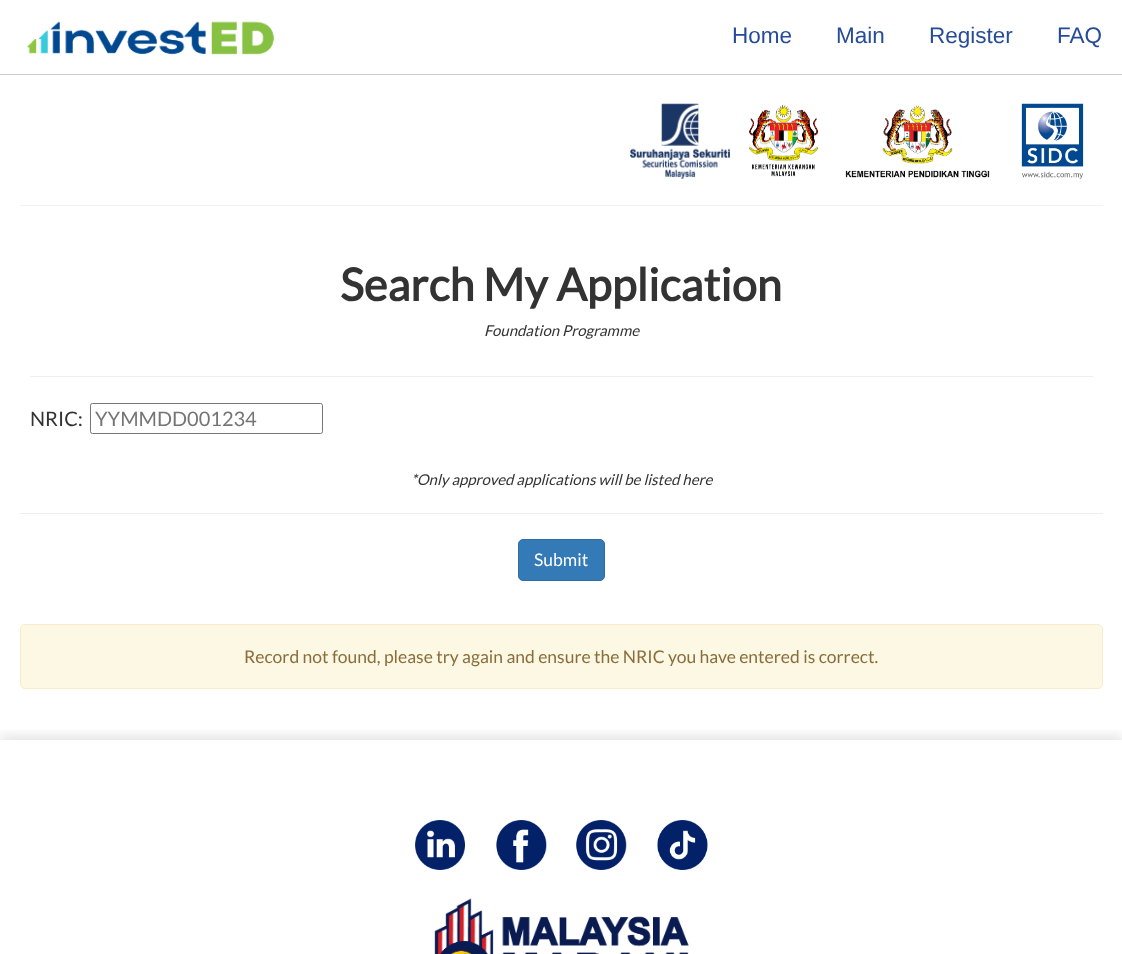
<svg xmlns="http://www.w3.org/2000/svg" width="1122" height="954">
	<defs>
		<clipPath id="clip1"><rect x="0" y="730" width="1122" height="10" /></clipPath>
	</defs>
	<rect width="100%" height="100%" fill="#FFFFFF" />
	<rect x="0" y="74" width="1122" height="1" fill="#CCCCCC" />
	<image x="26" y="21" width="248" height="34" href="assets/img1.png" />
	<g font-family="Liberation Sans" font-size="22.5" fill="#264C97">
		<text x="732" y="43">Home</text>
		<text x="836" y="43">Main</text>
		<text x="929" y="43">Register</text>
		<text x="1057" y="43">FAQ</text>
	</g>
	<rect x="20" y="205" width="1083" height="1" fill="#F1F1F1" />
	<image x="630" y="103" width="100" height="76" href="assets/img2.png" />
	<image x="749" y="104" width="69" height="73" href="assets/img3.png" />
	<image x="845" y="105" width="145" height="73" href="assets/img4.png" />
	<image x="1021" y="103" width="63" height="76" href="assets/img5.png" />
	<text x="340" y="301" font-family="Lato" font-size="45" font-weight="700" fill="#333333">Search My Application</text>
	<text x="484" y="336" font-family="Lato" font-size="15" font-style="italic" fill="#333333">Foundation Programme</text>
	<rect x="30" y="376" width="1063" height="1" fill="#EEEEEE" />
	<text x="30" y="426" font-family="Lato" font-size="20" fill="#333333">NRIC:</text>
	<rect x="90.5" y="403.5" width="232" height="30" rx="2" fill="none" stroke="#767676" />
	<text x="95" y="426" font-family="Lato" font-size="20" fill="#757575">YYMMDD001234</text>
	<text x="411" y="485" font-family="Lato" font-size="15" font-style="italic" fill="#333333">*Only approved applications will be listed here</text>
	<rect x="20" y="513" width="1083" height="1" fill="#EEEEEE" />
	<rect x="518.5" y="539.5" width="86" height="41" rx="4.5" fill="#337AB7" stroke="#2E6DA4" />
	<text x="534" y="566" font-family="Lato" font-size="17.5" fill="#FFFFFF">Submit</text>
	<rect x="20.5" y="624.5" width="1082" height="64" rx="4.5" fill="#FCF8E3" stroke="#FAEBCC" />
	<text x="244" y="663" font-family="Lato" font-size="17.5" fill="#8A6D3B">Record not found, please try again and ensure the NRIC you have entered is correct.</text>
	<g clip-path="url(#clip1)">
		<rect x="0" y="735" width="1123" height="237" fill="#000000" fill-opacity="0.1" filter="blur(6px)" />
	</g>
	<image x="415" y="820" width="50" height="50" href="assets/img6.png" />
	<image x="496" y="820" width="51" height="50" href="assets/img7.png" />
	<image x="576" y="820" width="51" height="50" href="assets/img8.png" />
	<image x="657" y="820" width="51" height="50" href="assets/img9.png" />
	<image x="434" y="898" width="255" height="56" href="assets/img10.png" />
</svg>
